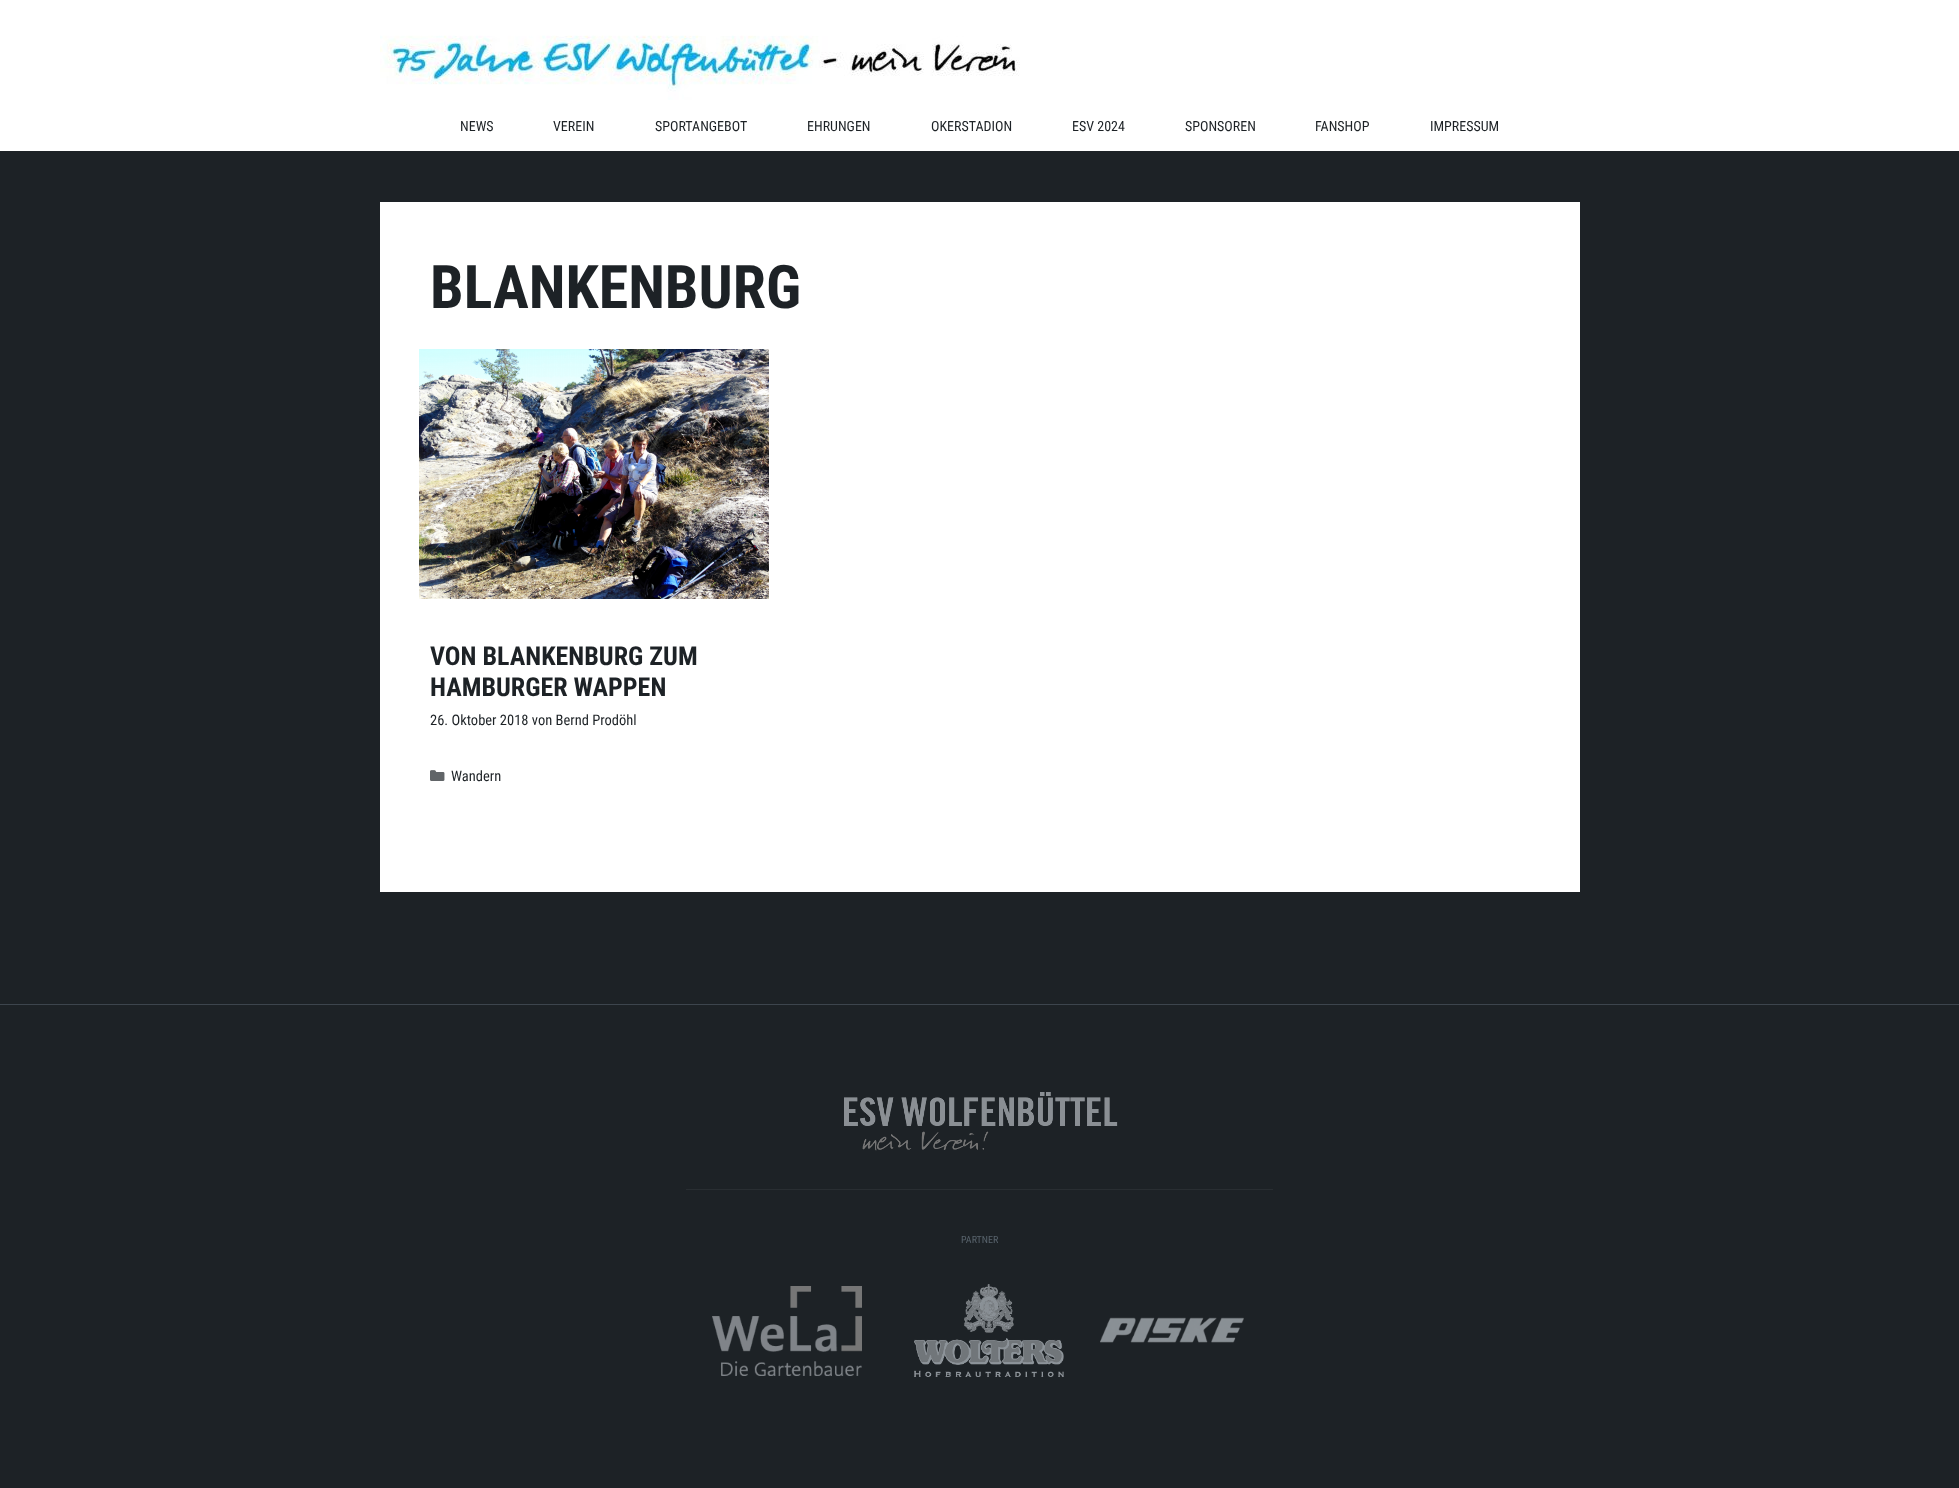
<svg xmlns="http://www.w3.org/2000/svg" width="1959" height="1488">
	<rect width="100%" height="100%" fill="#1D2226" />
	<rect x="0" y="0" width="1959" height="151" fill="#FFFFFF" />
	<image x="380" y="35" width="640" height="65" href="assets/img1.png" />
	<g font-family="Roboto Condensed" font-size="14" fill="#1D2226">
		<text x="460" y="131">NEWS</text>
		<text x="553" y="131">VEREIN</text>
		<text x="655" y="131">SPORTANGEBOT</text>
		<text x="807" y="131">EHRUNGEN</text>
		<text x="931" y="131">OKERSTADION</text>
		<text x="1072" y="131">ESV 2024</text>
		<text x="1185" y="131">SPONSOREN</text>
		<text x="1315" y="131">FANSHOP</text>
		<text x="1430" y="131">IMPRESSUM</text>
	</g>
	<rect x="380" y="202" width="1200" height="690" fill="#FFFFFF" />
	<text x="430" y="308" font-family="Roboto Condensed" font-size="60" font-weight="700" fill="#1D2226">BLANKENBURG</text>
	<image x="419" y="349" width="350" height="250" href="assets/img2.png" />
	<g font-family="Roboto Condensed" font-size="26" font-weight="700" fill="#1D2226">
		<text x="430" y="665">VON BLANKENBURG ZUM</text>
		<text x="430" y="696">HAMBURGER WAPPEN</text>
	</g>
	<text x="430" y="725" font-family="Roboto Condensed" font-size="14.5" fill="#1D2226">26. Oktober 2018 von Bernd Prodöhl</text>
	<image x="430" y="770" width="15" height="11" href="assets/img3.png" />
	<text x="451" y="781" font-family="Roboto Condensed" font-size="14.5" fill="#1D2226">Wandern</text>
	<rect x="0" y="1004" width="1959" height="1" fill="#3D454D" />
	<image x="844" y="1092" width="274" height="59" href="assets/img4.png" />
	<rect x="686" y="1189" width="587" height="1" fill="#292E32" />
	<text x="961" y="1243" font-family="Roboto Condensed" font-size="10" fill="#58636C">PARTNER</text>
	<image x="712" y="1286" width="150" height="90" href="assets/img5.png" />
	<image x="914" y="1284" width="150" height="93" href="assets/img6.png" />
	<image x="1100" y="1317" width="144" height="26" href="assets/img7.png" />
</svg>
